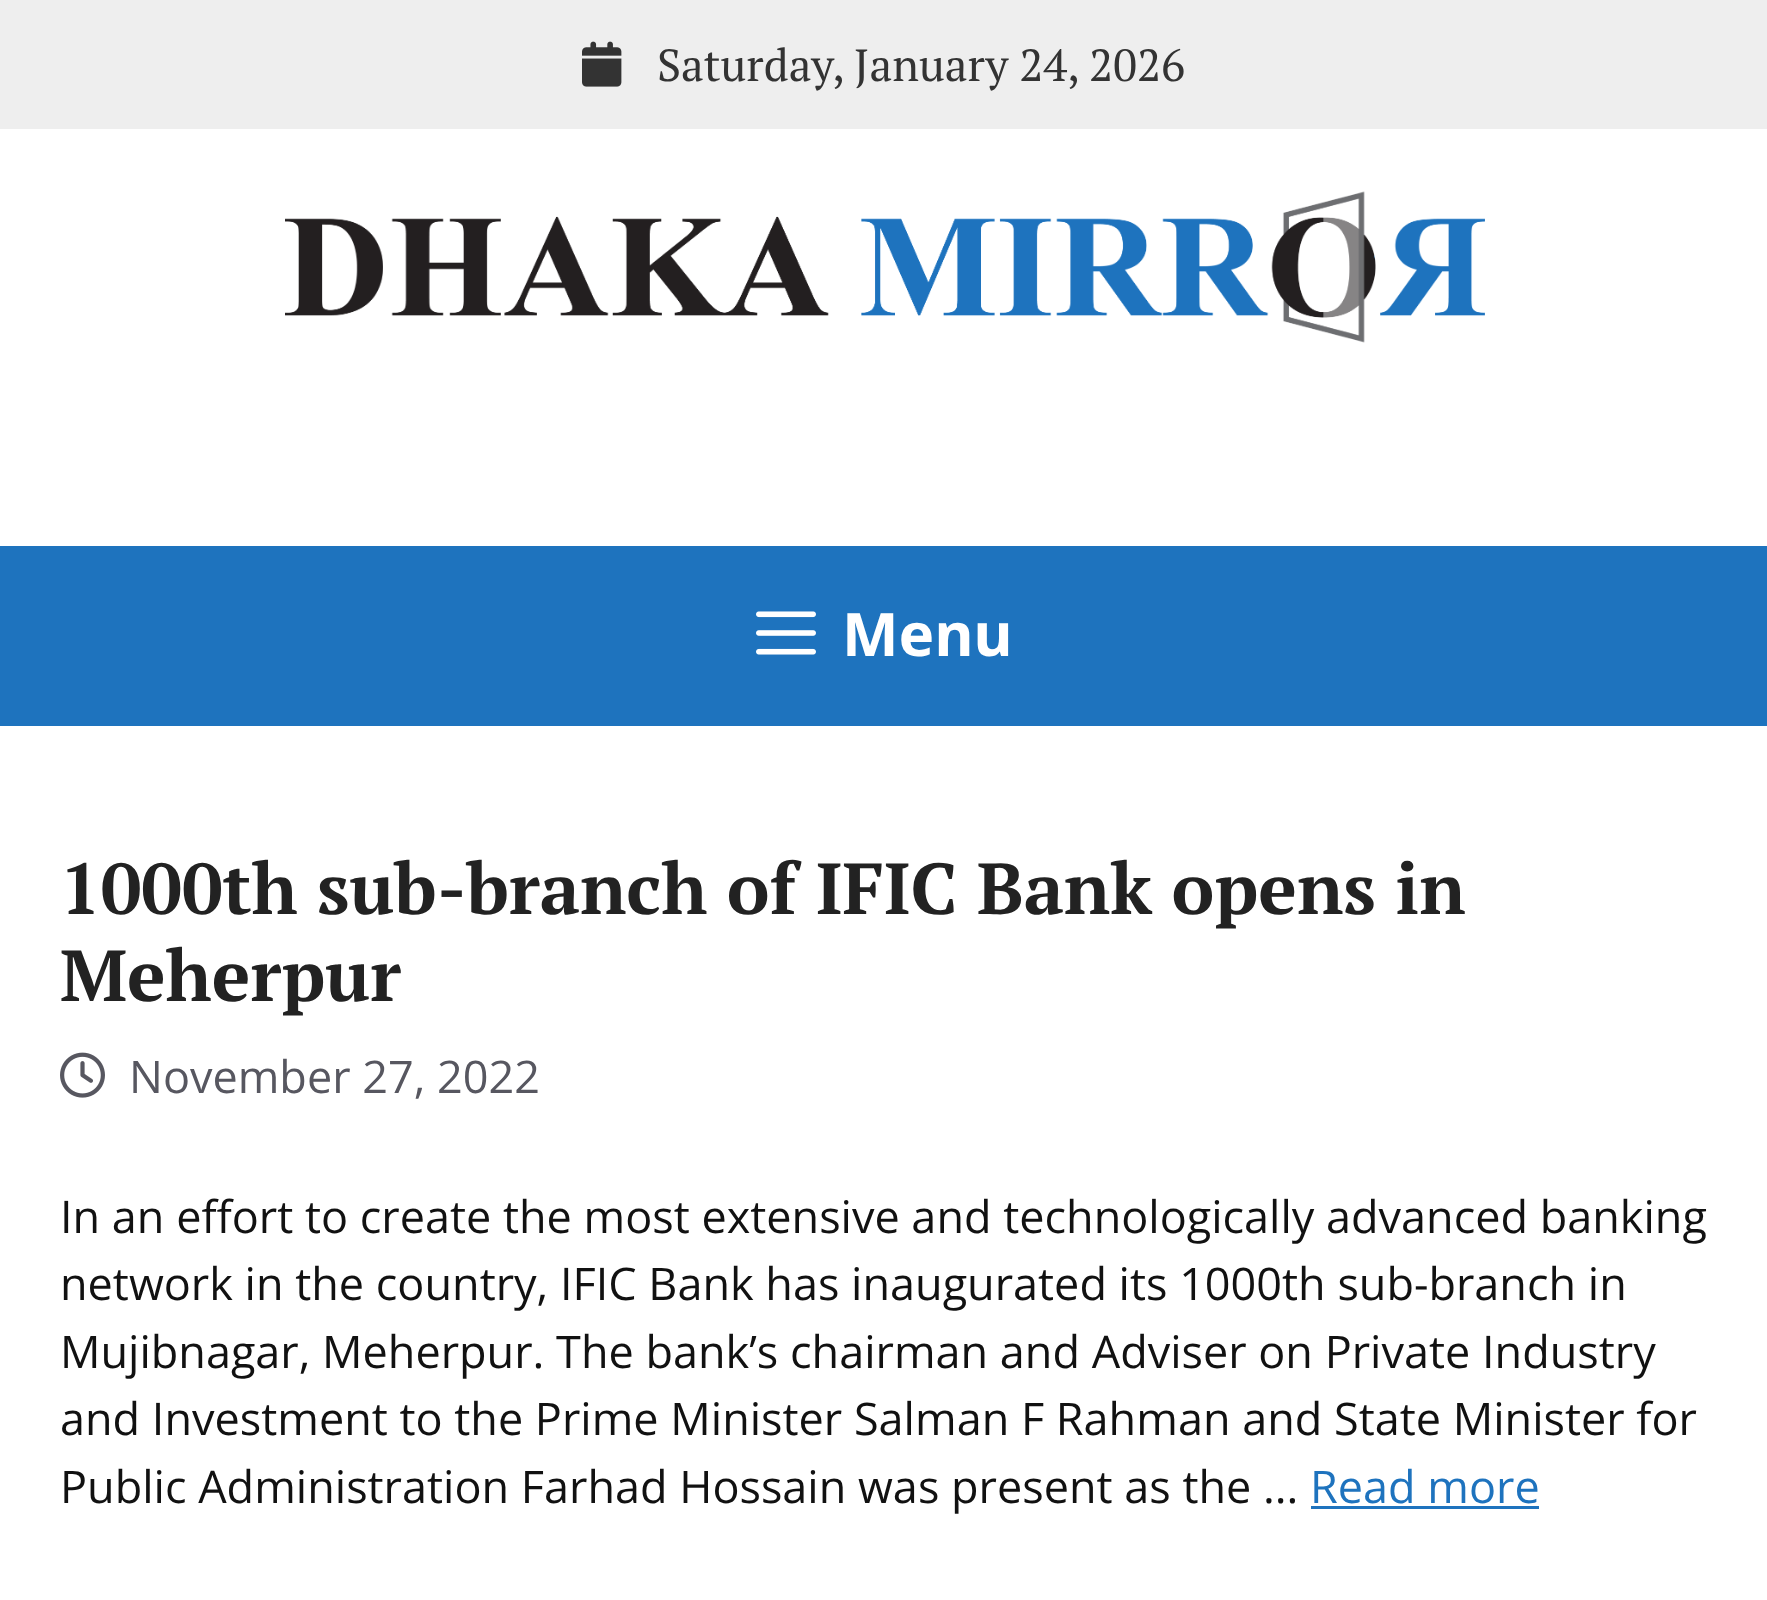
<svg xmlns="http://www.w3.org/2000/svg" width="1767" height="1600">
<rect width="100%" height="100%" fill="#eee"/>
<image x="582" y="41" width="40" height="46" href="media/1.png"/>
<text x="657" y="81" style="font-family:PT Serif;font-size:45px;fill:#333">Saturday, January 24, 2026</text>
<rect y="129" width="1767" height="417" fill="#fff"/>
<image x="285" y="191" width="1200" height="152" href="media/2.png"/>
<rect y="546" width="1767" height="180" fill="#1e73be"/>
<image x="756" y="611" width="60" height="44" href="media/3.png"/>
<text x="842" y="656" style="font-family:Noto Sans;font-size:60px;font-weight:bold;fill:#fff">Menu</text>
<rect y="726" width="1767" height="874" fill="#fff"/>
<text x="60" y="914" style="font-family:PT Serif;font-size:72px;font-weight:bold;fill:#222">1000th sub-branch of IFIC Bank opens in</text>
<text x="60" y="1001" style="font-family:PT Serif;font-size:72px;font-weight:bold;fill:#222">Meherpur</text>
<image x="60" y="1052" width="45" height="46" href="media/4.png"/>
<text x="129" y="1093" style="font-family:Open Sans;font-size:45px;fill:#575760">November 27, 2022</text>
<text x="60" y="1233" style="font-family:Open Sans;font-size:45px;fill:#111">In an effort to create the most extensive and technologically advanced banking</text>
<text x="60" y="1300" style="font-family:Open Sans;font-size:45px;fill:#111">network in the country, IFIC Bank has inaugurated its 1000th sub-branch in</text>
<text x="60" y="1368" style="font-family:Open Sans;font-size:45px;fill:#111">Mujibnagar, Meherpur. The bank’s chairman and Adviser on Private Industry</text>
<text x="60" y="1435" style="font-family:Open Sans;font-size:45px;fill:#111">and Investment to the Prime Minister Salman F Rahman and State Minister for</text>
<text x="60" y="1503" style="font-family:Open Sans;font-size:45px;fill:#111">Public Administration Farhad Hossain was present as the ...</text>
<text x="1310" y="1503" style="font-family:Open Sans;font-size:45px;fill:#1e73be">Read more</text>
<rect x="1311" y="1506" width="228" height="3" fill="#1e73be"/>
</svg>
